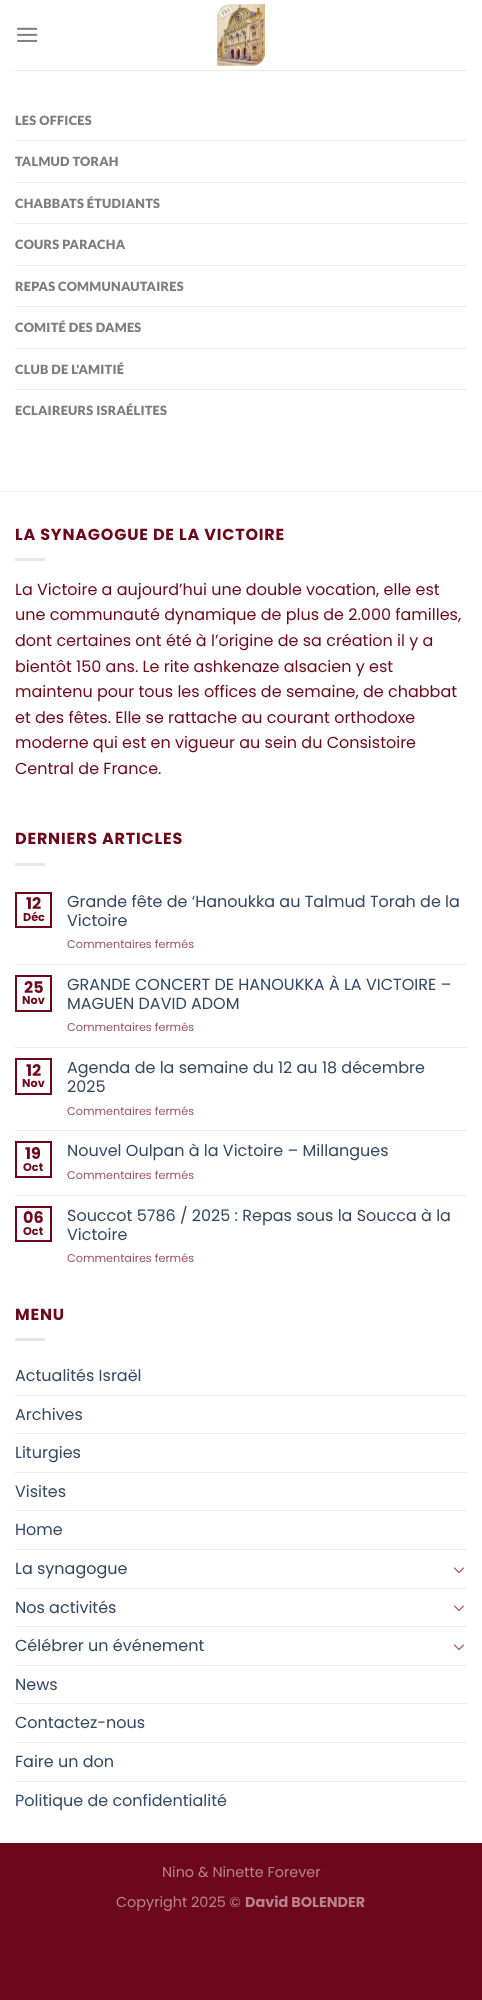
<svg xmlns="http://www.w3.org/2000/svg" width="482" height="2000">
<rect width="100%" height="100%" fill="#6d071a"/>
<rect width="482" height="1843" fill="#fff"/>
<image x="17" y="27" width="21" height="15" href="media/1.png"/>
<image x="217" y="4" width="48" height="62" href="media/2.png"/>
<rect x="15" y="70" width="452" height="1" fill="#f0e6e8"/>
<text x="15" y="125" style="font-family:Lato;font-size:12.75px;font-weight:900;letter-spacing:0.25px;fill:#7d7d7d">LES OFFICES</text>
<rect x="15" y="140" width="452" height="1" fill="#ececec"/>
<text x="15" y="166" style="font-family:Lato;font-size:12.75px;font-weight:900;letter-spacing:0.25px;fill:#7d7d7d">TALMUD TORAH</text>
<rect x="15" y="182" width="452" height="1" fill="#ececec"/>
<text x="15" y="208" style="font-family:Lato;font-size:12.75px;font-weight:900;letter-spacing:0.25px;fill:#7d7d7d">CHABBATS ÉTUDIANTS</text>
<rect x="15" y="223" width="452" height="1" fill="#ececec"/>
<text x="15" y="249" style="font-family:Lato;font-size:12.75px;font-weight:900;letter-spacing:0.25px;fill:#7d7d7d">COURS PARACHA</text>
<rect x="15" y="265" width="452" height="1" fill="#ececec"/>
<text x="15" y="291" style="font-family:Lato;font-size:12.75px;font-weight:900;letter-spacing:0.25px;fill:#7d7d7d">REPAS COMMUNAUTAIRES</text>
<rect x="15" y="306" width="452" height="1" fill="#ececec"/>
<text x="15" y="332" style="font-family:Lato;font-size:12.75px;font-weight:900;letter-spacing:0.25px;fill:#7d7d7d">COMITÉ DES DAMES</text>
<rect x="15" y="348" width="452" height="1" fill="#ececec"/>
<text x="15" y="374" style="font-family:Lato;font-size:12.75px;font-weight:900;letter-spacing:0.25px;fill:#7d7d7d">CLUB DE L'AMITIÉ</text>
<rect x="15" y="389" width="452" height="1" fill="#ececec"/>
<text x="15" y="415" style="font-family:Lato;font-size:12.75px;font-weight:900;letter-spacing:0.25px;fill:#7d7d7d">ECLAIREURS ISRAÉLITES</text>
<rect y="491" width="482" height="1" fill="#f2f2f2"/>
<text x="15" y="540" style="font-family:Poppins;font-size:16px;font-weight:bold;letter-spacing:0.8px;fill:#6d071a">LA SYNAGOGUE DE LA VICTOIRE</text>
<rect x="15" y="558" width="30" height="3" fill="#e6e6e6"/>
<text x="15" y="595" style="font-family:Poppins;font-size:16px;fill:#6d071a">La Victoire a aujourd’hui une double vocation, elle est</text>
<text x="15" y="620" style="font-family:Poppins;font-size:16px;fill:#6d071a">une communauté dynamique de plus de 2.000 familles,</text>
<text x="15" y="646" style="font-family:Poppins;font-size:16px;fill:#6d071a">dont certaines ont été à l’origine de sa création il y a</text>
<text x="15" y="672" style="font-family:Poppins;font-size:16px;fill:#6d071a">bientôt 150 ans. Le rite ashkenaze alsacien y est</text>
<text x="15" y="697" style="font-family:Poppins;font-size:16px;fill:#6d071a">maintenu pour tous les offices de semaine, de chabbat</text>
<text x="15" y="723" style="font-family:Poppins;font-size:16px;fill:#6d071a">et des fêtes. Elle se rattache au courant orthodoxe</text>
<text x="15" y="748" style="font-family:Poppins;font-size:16px;fill:#6d071a">moderne qui est en vigueur au sein du Consistoire</text>
<text x="15" y="774" style="font-family:Poppins;font-size:16px;fill:#6d071a">Central de France.</text>
<text x="15" y="844" style="font-family:Poppins;font-size:16px;font-weight:bold;letter-spacing:0.8px;fill:#6d071a">DERNIERS ARTICLES</text>
<rect x="15" y="863" width="30" height="3" fill="#e6e6e6"/>
<rect x="16" y="893" width="35" height="34" fill="none" stroke="#6d071a" stroke-width="2"/>
<text x="26" y="909" style="font-family:Poppins;font-size:16px;font-weight:bold;fill:#6d071a">12</text>
<text x="23" y="921" style="font-family:Poppins;font-size:11.25px;font-weight:bold;fill:#6d071a">Déc</text>
<text x="67" y="907" style="font-family:Poppins;font-size:16px;fill:#334862">Grande fête de ‘Hanoukka au Talmud Torah de la</text>
<text x="67" y="926" style="font-family:Poppins;font-size:16px;fill:#334862">Victoire</text>
<text x="67" y="948" style="font-family:Poppins;font-size:11.25px;fill:#99515f">Commentaires fermés</text>
<rect x="15" y="964" width="452" height="1" fill="#ececec"/>
<rect x="16" y="976" width="35" height="35" fill="none" stroke="#6d071a" stroke-width="2"/>
<text x="24" y="993" style="font-family:Poppins;font-size:16px;font-weight:bold;fill:#6d071a">25</text>
<text x="22" y="1004" style="font-family:Poppins;font-size:11.25px;font-weight:bold;fill:#6d071a">Nov</text>
<text x="67" y="990" style="font-family:Poppins;font-size:16px;fill:#334862">GRANDE CONCERT DE HANOUKKA À LA VICTOIRE –</text>
<text x="67" y="1009" style="font-family:Poppins;font-size:16px;fill:#334862">MAGUEN DAVID ADOM</text>
<text x="67" y="1031" style="font-family:Poppins;font-size:11.25px;fill:#99515f">Commentaires fermés</text>
<rect x="15" y="1047" width="452" height="1" fill="#ececec"/>
<rect x="16" y="1059" width="35" height="35" fill="none" stroke="#6d071a" stroke-width="2"/>
<text x="26" y="1076" style="font-family:Poppins;font-size:16px;font-weight:bold;fill:#6d071a">12</text>
<text x="22" y="1087" style="font-family:Poppins;font-size:11.25px;font-weight:bold;fill:#6d071a">Nov</text>
<text x="67" y="1073" style="font-family:Poppins;font-size:16px;fill:#334862">Agenda de la semaine du 12 au 18 décembre</text>
<text x="67" y="1092" style="font-family:Poppins;font-size:16px;fill:#334862">2025</text>
<text x="67" y="1115" style="font-family:Poppins;font-size:11.25px;fill:#99515f">Commentaires fermés</text>
<rect x="15" y="1130" width="452" height="1" fill="#ececec"/>
<rect x="16" y="1142" width="35" height="35" fill="none" stroke="#6d071a" stroke-width="2"/>
<text x="25" y="1159" style="font-family:Poppins;font-size:16px;font-weight:bold;fill:#6d071a">19</text>
<text x="23" y="1171" style="font-family:Poppins;font-size:11.25px;font-weight:bold;fill:#6d071a">Oct</text>
<text x="67" y="1156" style="font-family:Poppins;font-size:16px;fill:#334862">Nouvel Oulpan à la Victoire – Millangues</text>
<text x="67" y="1179" style="font-family:Poppins;font-size:11.25px;fill:#99515f">Commentaires fermés</text>
<rect x="15" y="1195" width="452" height="1" fill="#ececec"/>
<rect x="16" y="1207" width="35" height="34" fill="none" stroke="#6d071a" stroke-width="2"/>
<text x="23" y="1223" style="font-family:Poppins;font-size:16px;font-weight:bold;fill:#6d071a">06</text>
<text x="23" y="1235" style="font-family:Poppins;font-size:11.25px;font-weight:bold;fill:#6d071a">Oct</text>
<text x="67" y="1221" style="font-family:Poppins;font-size:16px;fill:#334862">Souccot 5786 / 2025 : Repas sous la Soucca à la</text>
<text x="67" y="1240" style="font-family:Poppins;font-size:16px;fill:#334862">Victoire</text>
<text x="67" y="1262" style="font-family:Poppins;font-size:11.25px;fill:#99515f">Commentaires fermés</text>
<text x="15" y="1320" style="font-family:Poppins;font-size:16px;font-weight:bold;letter-spacing:0.8px;fill:#6d071a">MENU</text>
<rect x="15" y="1338" width="30" height="3" fill="#e6e6e6"/>
<text x="15" y="1381" style="font-family:Poppins;font-size:16px;fill:#334862">Actualités Israël</text>
<rect x="15" y="1395" width="452" height="1" fill="#ececec"/>
<text x="15" y="1420" style="font-family:Poppins;font-size:16px;fill:#334862">Archives</text>
<rect x="15" y="1433" width="452" height="1" fill="#ececec"/>
<text x="15" y="1458" style="font-family:Poppins;font-size:16px;fill:#334862">Liturgies</text>
<rect x="15" y="1472" width="452" height="1" fill="#ececec"/>
<text x="15" y="1497" style="font-family:Poppins;font-size:16px;fill:#334862">Visites</text>
<rect x="15" y="1510" width="452" height="1" fill="#ececec"/>
<text x="15" y="1535" style="font-family:Poppins;font-size:16px;fill:#334862">Home</text>
<rect x="15" y="1549" width="452" height="1" fill="#ececec"/>
<text x="15" y="1574" style="font-family:Poppins;font-size:16px;fill:#334862">La synagogue</text>
<image x="453" y="1567" width="12" height="7" href="media/3.png"/>
<rect x="15" y="1588" width="452" height="1" fill="#ececec"/>
<text x="15" y="1613" style="font-family:Poppins;font-size:16px;fill:#334862">Nos activités</text>
<image x="453" y="1605" width="12" height="7" href="media/3.png"/>
<rect x="15" y="1626" width="452" height="1" fill="#ececec"/>
<text x="15" y="1651" style="font-family:Poppins;font-size:16px;fill:#334862">Célébrer un événement</text>
<image x="453" y="1644" width="12" height="7" href="media/3.png"/>
<rect x="15" y="1665" width="452" height="1" fill="#ececec"/>
<text x="15" y="1690" style="font-family:Poppins;font-size:16px;fill:#334862">News</text>
<rect x="15" y="1703" width="452" height="1" fill="#ececec"/>
<text x="15" y="1728" style="font-family:Poppins;font-size:16px;fill:#334862">Contactez-nous</text>
<rect x="15" y="1742" width="452" height="1" fill="#ececec"/>
<text x="15" y="1767" style="font-family:Poppins;font-size:16px;fill:#334862">Faire un don</text>
<rect x="15" y="1781" width="452" height="1" fill="#ececec"/>
<text x="15" y="1806" style="font-family:Poppins;font-size:16px;fill:#334862">Politique de confidentialité</text>
<text x="162" y="1877" style="font-family:Poppins;font-size:14.4px;fill:#b6838d">Nino &amp; Ninette Forever</text>
<text x="116" y="1907" style="font-family:Poppins;font-size:14.4px;fill:#b6838d">Copyright 2025 ©</text>
<text x="245" y="1907" style="font-family:Poppins;font-size:14.4px;font-weight:bold;fill:#b6838d">David BOLENDER</text>
</svg>
